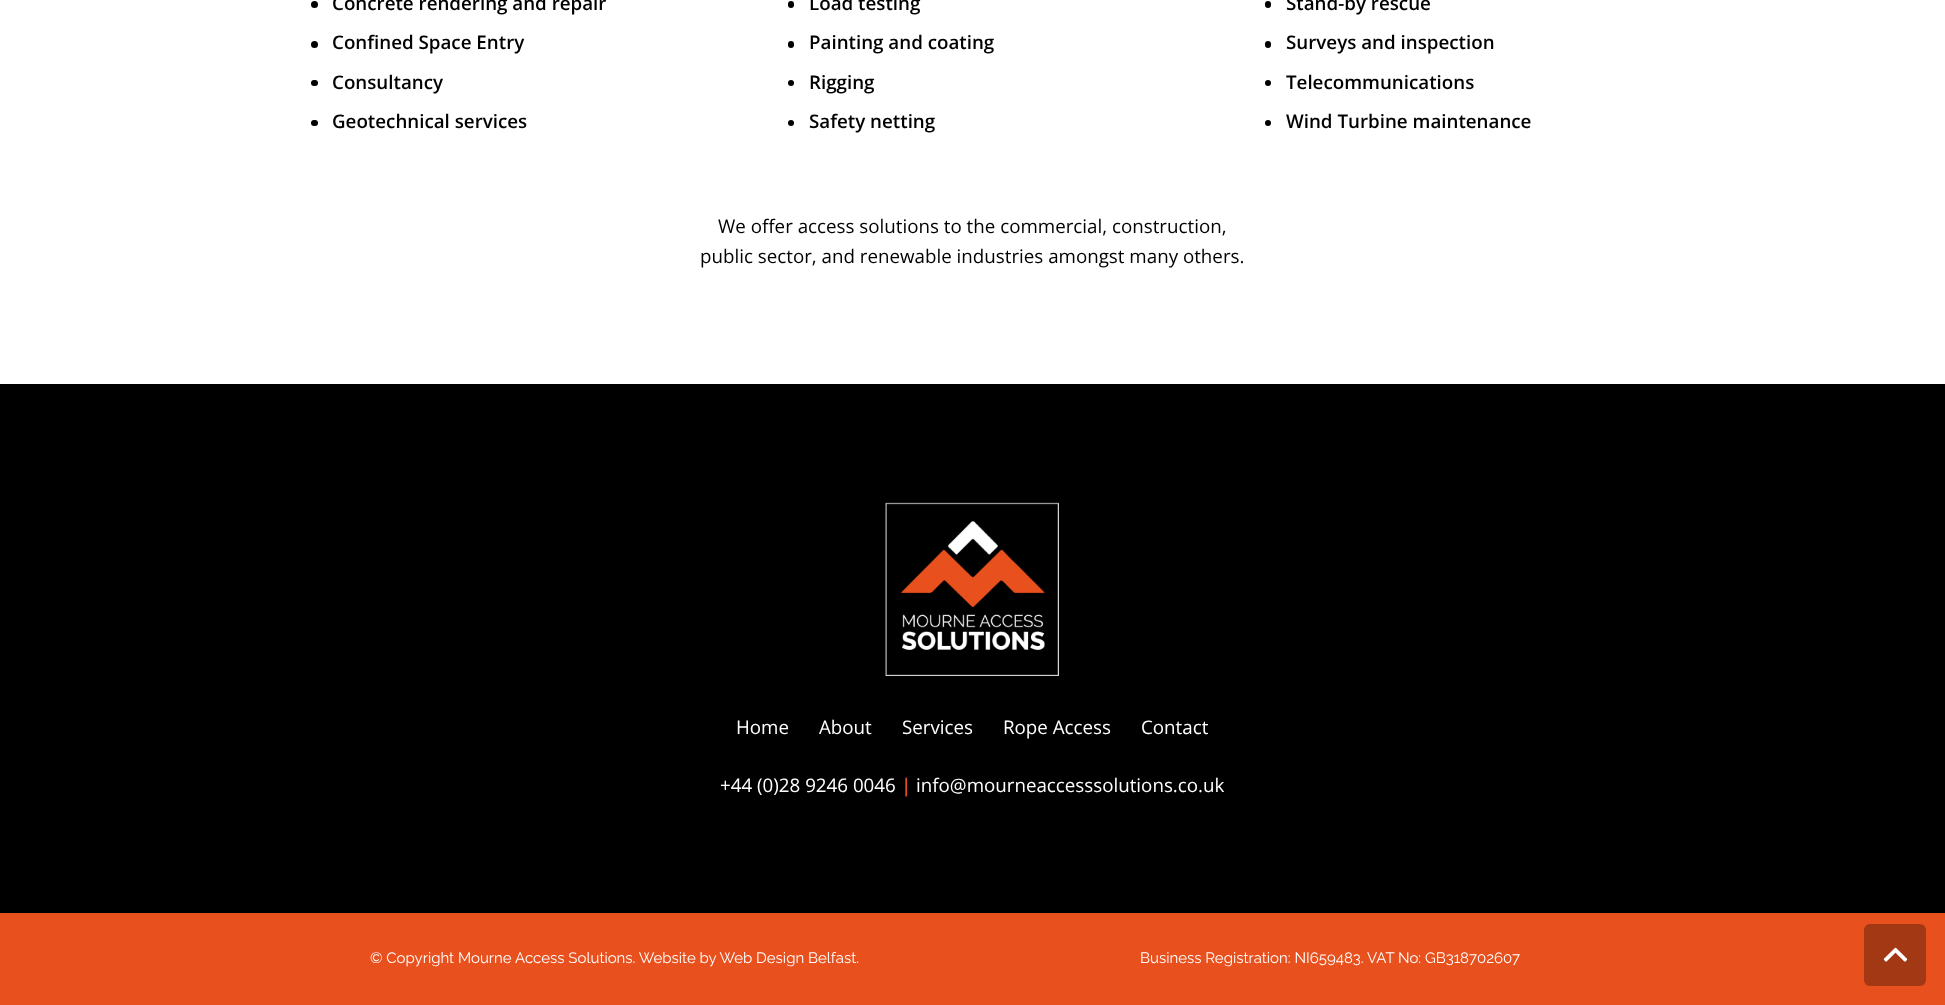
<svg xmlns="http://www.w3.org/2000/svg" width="1945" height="1005">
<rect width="100%" height="100%" fill="#fff"/>
<circle cx="314.5" cy="4.5" r="3.5" fill="#000"/>
<text x="332" y="10" style="font-family:Open Sans;font-size:18.75px;font-weight:600;fill:#000">Concrete rendering and repair</text>
<circle cx="314.5" cy="44.5" r="3.5" fill="#000"/>
<text x="332" y="49" style="font-family:Open Sans;font-size:18.75px;font-weight:600;fill:#000">Confined Space Entry</text>
<rect x="311" y="80" width="7" height="6" rx="3" fill="#000"/>
<text x="332" y="89" style="font-family:Open Sans;font-size:18.75px;font-weight:600;fill:#000">Consultancy</text>
<rect x="311" y="120" width="7" height="6" rx="3" fill="#000"/>
<text x="332" y="128" style="font-family:Open Sans;font-size:18.75px;font-weight:600;fill:#000">Geotechnical services</text>
<rect x="788" y="1" width="6" height="7" rx="3" fill="#000"/>
<text x="809" y="10" style="font-family:Open Sans;font-size:18.75px;font-weight:600;fill:#000">Load testing</text>
<rect x="788" y="41" width="6" height="7" rx="3" fill="#000"/>
<text x="809" y="49" style="font-family:Open Sans;font-size:18.75px;font-weight:600;fill:#000">Painting and coating</text>
<circle cx="791" cy="83" r="3" fill="#000"/>
<text x="809" y="89" style="font-family:Open Sans;font-size:18.75px;font-weight:600;fill:#000">Rigging</text>
<circle cx="791" cy="123" r="3" fill="#000"/>
<text x="809" y="128" style="font-family:Open Sans;font-size:18.75px;font-weight:600;fill:#000">Safety netting</text>
<rect x="1265" y="1" width="6" height="7" rx="3" fill="#000"/>
<text x="1286" y="10" style="font-family:Open Sans;font-size:18.75px;font-weight:600;fill:#000">Stand-by rescue</text>
<rect x="1265" y="41" width="6" height="7" rx="3" fill="#000"/>
<text x="1286" y="49" style="font-family:Open Sans;font-size:18.75px;font-weight:600;fill:#000">Surveys and inspection</text>
<circle cx="1268" cy="83" r="3" fill="#000"/>
<text x="1286" y="89" style="font-family:Open Sans;font-size:18.75px;font-weight:600;fill:#000">Telecommunications</text>
<circle cx="1268" cy="123" r="3" fill="#000"/>
<text x="1286" y="128" style="font-family:Open Sans;font-size:18.75px;font-weight:600;fill:#000">Wind Turbine maintenance</text>
<text x="718" y="233" style="font-family:Open Sans;font-size:18.75px;fill:#000">We offer access solutions to the commercial, construction,</text>
<text x="700" y="263" style="font-family:Open Sans;font-size:18.75px;fill:#000">public sector, and renewable industries amongst many others.</text>
<rect y="384" width="1945" height="529" fill="#000"/>
<image x="885" y="502" width="174" height="174" href="media/1.png"/>
<text x="736" y="734" style="font-family:Open Sans;font-size:18.75px;fill:#fff">Home</text>
<text x="819" y="734" style="font-family:Open Sans;font-size:18.75px;fill:#fff">About</text>
<text x="902" y="734" style="font-family:Open Sans;font-size:18.75px;fill:#fff">Services</text>
<text x="1003" y="734" style="font-family:Open Sans;font-size:18.75px;fill:#fff">Rope Access</text>
<text x="1141" y="734" style="font-family:Open Sans;font-size:18.75px;fill:#fff">Contact</text>
<text x="720" y="792" style="font-family:Open Sans;font-size:18.75px;fill:#fff">+44 (0)28 9246 0046</text>
<text x="901" y="792" style="font-family:Open Sans;font-size:18.75px;font-weight:600;fill:#e8501d">|</text>
<text x="916" y="792" style="font-family:Open Sans;font-size:18.75px;fill:#fff">info@mourneaccesssolutions.co.uk</text>
<rect y="913" width="1945" height="92" fill="#e8501d"/>
<text x="370" y="963" style="font-family:Raleway;font-size:15px;fill:#fff">© Copyright Mourne Access Solutions. Website by Web Design Belfast.</text>
<text x="1140" y="963" style="font-family:Raleway;font-size:15px;fill:#fff">Business Registration: NI659483. VAT No: GB318702607</text>
<rect x="1864" y="924" width="62" height="62" rx="6" fill="#a23814"/>
<image x="1883" y="947" width="25" height="15" href="media/2.png"/>
</svg>
